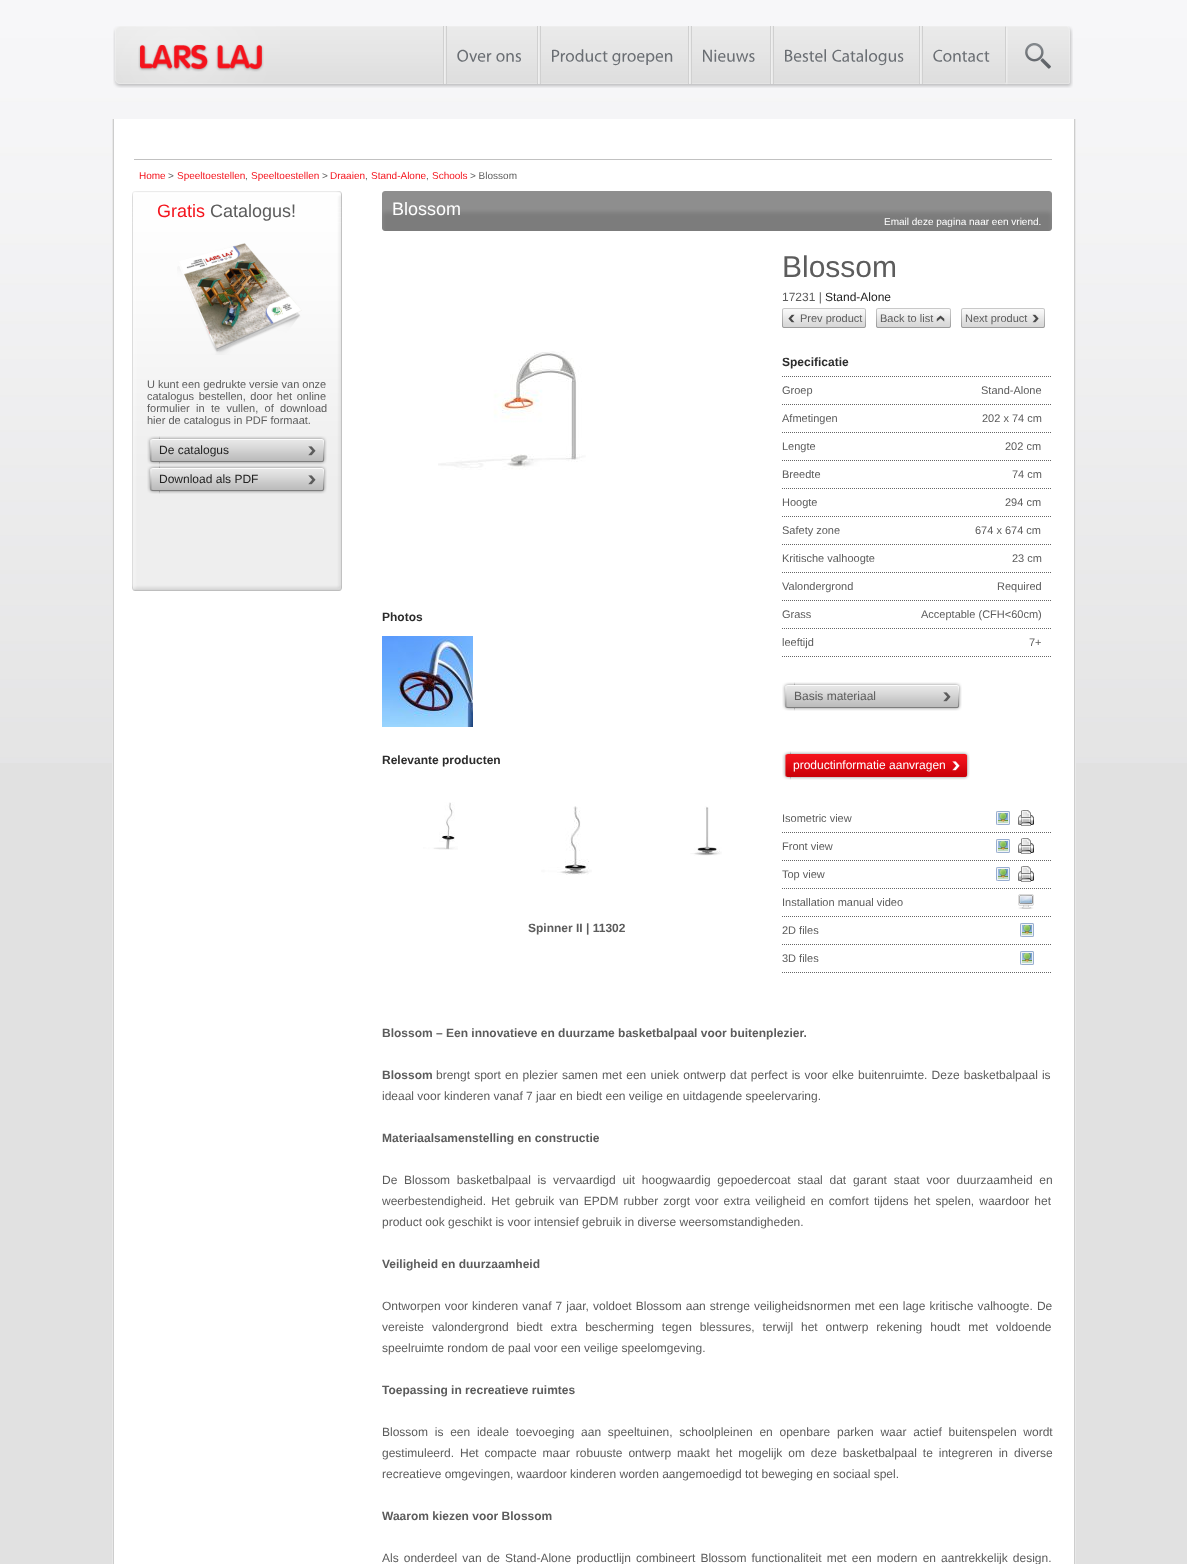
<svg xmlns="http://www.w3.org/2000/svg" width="1187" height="1564">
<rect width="100%" height="100%" fill="#e1e1e1"/>
<image x="0" y="0" width="1187" height="763" href="media/1.png"/>
<image x="113" y="26" width="167" height="62" href="media/2.png"/>
<image x="138" y="44" width="126" height="28" href="media/3.png"/>
<image x="280" y="26" width="725" height="62" href="media/4.png"/>
<image x="443" y="26" width="4" height="58" href="media/5.png"/>
<image x="457" y="49" width="35" height="13" href="media/6.png"/>
<image x="496" y="53" width="25" height="9" href="media/7.png"/>
<image x="537" y="26" width="4" height="58" href="media/5.png"/>
<image x="552" y="49" width="56" height="13" href="media/8.png"/>
<image x="612" y="53" width="61" height="13" href="media/9.png"/>
<image x="688" y="26" width="4" height="58" href="media/5.png"/>
<image x="703" y="49" width="52" height="13" href="media/10.png"/>
<image x="770" y="26" width="4" height="58" href="media/5.png"/>
<image x="785" y="49" width="41" height="13" href="media/11.png"/>
<image x="832" y="49" width="72" height="17" href="media/12.png"/>
<image x="919" y="26" width="4" height="58" href="media/5.png"/>
<image x="933" y="49" width="57" height="13" href="media/13.png"/>
<image x="1005" y="26" width="68" height="62" href="media/14.png"/>
<image x="112" y="119" width="964" height="1445" href="media/15.png"/>
<rect x="134" y="159" width="918" height="1" fill="#c1c1c1"/>
<text x="139" y="179" style="font-family:Liberation Sans;font-size:10px;fill:#f4131c">Home</text>
<text x="168" y="179" style="font-family:Liberation Sans;font-size:10px;fill:#5c5c5c">&gt;</text>
<text x="177" y="179" style="font-family:Liberation Sans;font-size:10px;fill:#f4131c">Speeltoestellen</text>
<text x="245" y="179" style="font-family:Liberation Sans;font-size:10px;fill:#5c5c5c">,</text>
<text x="251" y="179" style="font-family:Liberation Sans;font-size:10px;fill:#f4131c">Speeltoestellen</text>
<text x="322" y="179" style="font-family:Liberation Sans;font-size:10px;fill:#5c5c5c">&gt;</text>
<text x="330" y="179" style="font-family:Liberation Sans;font-size:10px;fill:#f4131c">Draaien</text>
<text x="365" y="179" style="font-family:Liberation Sans;font-size:10px;fill:#5c5c5c">,</text>
<text x="371" y="179" style="font-family:Liberation Sans;font-size:10px;fill:#f4131c">Stand-Alone</text>
<text x="426" y="179" style="font-family:Liberation Sans;font-size:10px;fill:#5c5c5c">,</text>
<text x="432" y="179" style="font-family:Liberation Sans;font-size:10px;fill:#f4131c">Schools</text>
<text x="470" y="179" style="font-family:Liberation Sans;font-size:10px;fill:#5c5c5c">&gt; Blossom</text>
<image x="132" y="191" width="210" height="400" href="media/16.png"/>
<text x="157" y="217" style="font-family:Liberation Sans;font-size:18px;fill:#f4131c">Gratis</text>
<text x="210" y="217" style="font-family:Liberation Sans;font-size:18px;fill:#5c5c5c">Catalogus!</text>
<image x="177" y="243" width="125" height="112" href="media/17.png"/>
<text x="147" y="388" style="font-family:Liberation Sans;font-size:11px;fill:#5c5c5c">U kunt een gedrukte versie van onze</text>
<text x="147" y="400" word-spacing="1.5" style="font-family:Liberation Sans;font-size:11px;fill:#5c5c5c">catalogus bestellen, door het online</text>
<text x="147" y="412" word-spacing="3.25" style="font-family:Liberation Sans;font-size:11px;fill:#5c5c5c">formulier in te vullen, of download</text>
<text x="147" y="424" style="font-family:Liberation Sans;font-size:11px;fill:#5c5c5c">hier de catalogus in PDF formaat.</text>
<image x="147" y="436" width="13" height="29" href="media/18.png"/>
<image x="159" y="436" width="168" height="29" href="media/19.png"/>
<text x="159" y="454" style="font-family:Liberation Sans;font-size:12px;fill:#222">De catalogus</text>
<image x="147" y="465" width="13" height="29" href="media/20.png"/>
<image x="159" y="465" width="168" height="29" href="media/21.png"/>
<text x="159" y="483" style="font-family:Liberation Sans;font-size:12px;fill:#222">Download als PDF</text>
<image x="382" y="191" width="670" height="40" href="media/22.png"/>
<text x="392" y="215" style="font-family:Liberation Sans;font-size:18px;fill:#fff">Blossom</text>
<text x="884" y="225" style="font-family:Liberation Sans;font-size:10px;fill:#fff">Email deze pagina naar een vriend.</text>
<image x="438" y="351" width="148" height="119" href="media/23.png"/>
<text x="382" y="621" style="font-family:Liberation Sans;font-size:12px;font-weight:bold;fill:#2c2c2c">Photos</text>
<image x="382" y="636" width="91" height="91" href="media/24.png"/>
<text x="382" y="764" style="font-family:Liberation Sans;font-size:12px;font-weight:bold;fill:#2c2c2c">Relevante producten</text>
<image x="423" y="802" width="35" height="48" href="media/25.png"/>
<image x="541" y="806" width="51" height="69" href="media/26.png"/>
<image x="690" y="806" width="32" height="50" href="media/27.png"/>
<text x="528" y="932" style="font-family:Liberation Sans;font-size:12px;font-weight:bold;fill:#5c5c5c">Spinner II | 11302</text>
<text x="782" y="277" style="font-family:Liberation Sans;font-size:30px;fill:#5c5c5c">Blossom</text>
<text x="782" y="301" style="font-family:Liberation Sans;font-size:12px;fill:#5c5c5c">17231 |</text>
<text x="825" y="301" style="font-family:Liberation Sans;font-size:12px;fill:#222">Stand-Alone</text>
<image x="860" y="308" width="6" height="20" href="media/28.png"/>
<image x="782" y="308" width="78" height="20" href="media/29.png"/>
<text x="800" y="322" style="font-family:Liberation Sans;font-size:11px;fill:#5c5c5c">Prev product</text>
<image x="876" y="308" width="6" height="20" href="media/30.png"/>
<image x="882" y="308" width="69" height="20" href="media/31.png"/>
<text x="880" y="322" style="font-family:Liberation Sans;font-size:11px;fill:#5c5c5c">Back to list</text>
<image x="961" y="308" width="6" height="20" href="media/30.png"/>
<image x="967" y="308" width="78" height="20" href="media/32.png"/>
<text x="965" y="322" style="font-family:Liberation Sans;font-size:11px;fill:#5c5c5c">Next product</text>
<path d="M782 376.5h270" fill="none" stroke="#666" stroke-dasharray="1 1"/>
<text x="782" y="366" style="font-family:Liberation Sans;font-size:12px;font-weight:bold;fill:#2c2c2c">Specificatie</text>
<path d="M782 404.5h270" fill="none" stroke="#666" stroke-dasharray="1 1"/>
<text x="782" y="394" style="font-family:Liberation Sans;font-size:11px;fill:#5c5c5c">Groep</text>
<text x="981" y="394" style="font-family:Liberation Sans;font-size:11px;fill:#5c5c5c">Stand-Alone</text>
<path d="M782 432.5h270" fill="none" stroke="#666" stroke-dasharray="1 1"/>
<text x="782" y="422" style="font-family:Liberation Sans;font-size:11px;fill:#5c5c5c">Afmetingen</text>
<text x="982" y="422" style="font-family:Liberation Sans;font-size:11px;fill:#5c5c5c">202 x 74 cm</text>
<path d="M782 460.5h270" fill="none" stroke="#666" stroke-dasharray="1 1"/>
<text x="782" y="450" style="font-family:Liberation Sans;font-size:11px;fill:#5c5c5c">Lengte</text>
<text x="1005" y="450" style="font-family:Liberation Sans;font-size:11px;fill:#5c5c5c">202 cm</text>
<path d="M782 488.5h270" fill="none" stroke="#666" stroke-dasharray="1 1"/>
<text x="782" y="478" style="font-family:Liberation Sans;font-size:11px;fill:#5c5c5c">Breedte</text>
<text x="1012" y="478" style="font-family:Liberation Sans;font-size:11px;fill:#5c5c5c">74 cm</text>
<path d="M782 516.5h270" fill="none" stroke="#666" stroke-dasharray="1 1"/>
<text x="782" y="506" style="font-family:Liberation Sans;font-size:11px;fill:#5c5c5c">Hoogte</text>
<text x="1005" y="506" style="font-family:Liberation Sans;font-size:11px;fill:#5c5c5c">294 cm</text>
<path d="M782 544.5h270" fill="none" stroke="#666" stroke-dasharray="1 1"/>
<text x="782" y="534" style="font-family:Liberation Sans;font-size:11px;fill:#5c5c5c">Safety zone</text>
<text x="975" y="534" style="font-family:Liberation Sans;font-size:11px;fill:#5c5c5c">674 x 674 cm</text>
<path d="M782 572.5h270" fill="none" stroke="#666" stroke-dasharray="1 1"/>
<text x="782" y="562" style="font-family:Liberation Sans;font-size:11px;fill:#5c5c5c">Kritische valhoogte</text>
<text x="1012" y="562" style="font-family:Liberation Sans;font-size:11px;fill:#5c5c5c">23 cm</text>
<path d="M782 600.5h270" fill="none" stroke="#666" stroke-dasharray="1 1"/>
<text x="782" y="590" style="font-family:Liberation Sans;font-size:11px;fill:#5c5c5c">Valondergrond</text>
<text x="997" y="590" style="font-family:Liberation Sans;font-size:11px;fill:#5c5c5c">Required</text>
<path d="M782 628.5h270" fill="none" stroke="#666" stroke-dasharray="1 1"/>
<text x="782" y="618" style="font-family:Liberation Sans;font-size:11px;fill:#5c5c5c">Grass</text>
<text x="921" y="618" style="font-family:Liberation Sans;font-size:11px;fill:#5c5c5c">Acceptable (CFH&lt;60cm)</text>
<path d="M782 656.5h270" fill="none" stroke="#666" stroke-dasharray="1 1"/>
<text x="782" y="646" style="font-family:Liberation Sans;font-size:11px;fill:#5c5c5c">leeftijd</text>
<text x="1029" y="646" style="font-family:Liberation Sans;font-size:11px;fill:#5c5c5c">7+</text>
<image x="782" y="682" width="13" height="29" href="media/33.png"/>
<image x="794" y="682" width="168" height="29" href="media/34.png"/>
<text x="794" y="700" style="font-family:Liberation Sans;font-size:12px;fill:#5c5c5c">Basis materiaal</text>
<image x="782" y="751" width="9" height="29" href="media/35.png"/>
<image x="790" y="751" width="180" height="29" href="media/36.png"/>
<text x="793" y="769" style="font-family:Liberation Sans;font-size:12px;fill:#fff">productinformatie aanvragen</text>
<path d="M782 832.5h270" fill="none" stroke="#666" stroke-dasharray="1 1"/>
<text x="782" y="822" style="font-family:Liberation Sans;font-size:11px;fill:#5c5c5c">Isometric view</text>
<image x="996" y="811" width="14" height="14" href="media/37.png"/>
<image x="1018" y="810" width="16" height="16" href="media/38.png"/>
<path d="M782 860.5h270" fill="none" stroke="#666" stroke-dasharray="1 1"/>
<text x="782" y="850" style="font-family:Liberation Sans;font-size:11px;fill:#5c5c5c">Front view</text>
<image x="996" y="839" width="14" height="14" href="media/37.png"/>
<image x="1018" y="838" width="16" height="16" href="media/38.png"/>
<path d="M782 888.5h270" fill="none" stroke="#666" stroke-dasharray="1 1"/>
<text x="782" y="878" style="font-family:Liberation Sans;font-size:11px;fill:#5c5c5c">Top view</text>
<image x="996" y="867" width="14" height="14" href="media/37.png"/>
<image x="1018" y="866" width="16" height="16" href="media/38.png"/>
<path d="M782 916.5h270" fill="none" stroke="#666" stroke-dasharray="1 1"/>
<text x="782" y="906" style="font-family:Liberation Sans;font-size:11px;fill:#5c5c5c">Installation manual video</text>
<image x="1018" y="894" width="16" height="15" href="media/39.png"/>
<path d="M782 944.5h270" fill="none" stroke="#666" stroke-dasharray="1 1"/>
<text x="782" y="934" style="font-family:Liberation Sans;font-size:11px;fill:#5c5c5c">2D files</text>
<image x="1020" y="923" width="14" height="14" href="media/37.png"/>
<path d="M782 972.5h270" fill="none" stroke="#666" stroke-dasharray="1 1"/>
<text x="782" y="962" style="font-family:Liberation Sans;font-size:11px;fill:#5c5c5c">3D files</text>
<image x="1020" y="951" width="14" height="14" href="media/37.png"/>
<text x="382" y="1037" style="font-family:Liberation Sans;font-size:12px;font-weight:bold;fill:#5c5c5c">Blossom – Een innovatieve en duurzame basketbalpaal voor buitenplezier.</text>
<text x="382" y="1079" style="font-family:Liberation Sans;font-size:12px;font-weight:bold;fill:#5c5c5c">Blossom</text>
<text x="436" y="1079" word-spacing="0.8" style="font-family:Liberation Sans;font-size:12px;fill:#5c5c5c">brengt sport en plezier samen met een uniek ontwerp dat perfect is voor elke buitenruimte. Deze basketbalpaal is</text>
<text x="382" y="1100" style="font-family:Liberation Sans;font-size:12px;fill:#5c5c5c">ideaal voor kinderen vanaf 7 jaar en biedt een veilige en uitdagende speelervaring.</text>
<text x="382" y="1142" style="font-family:Liberation Sans;font-size:12px;font-weight:bold;fill:#5c5c5c">Materiaalsamenstelling en constructie</text>
<text x="382" y="1184" word-spacing="3.4" style="font-family:Liberation Sans;font-size:12px;fill:#5c5c5c">De Blossom basketbalpaal is vervaardigd uit hoogwaardig gepoedercoat staal dat garant staat voor duurzaamheid en</text>
<text x="382" y="1205" word-spacing="1.75" style="font-family:Liberation Sans;font-size:12px;fill:#5c5c5c">weerbestendigheid. Het gebruik van EPDM rubber zorgt voor extra veiligheid en comfort tijdens het spelen, waardoor het</text>
<text x="382" y="1226" style="font-family:Liberation Sans;font-size:12px;fill:#5c5c5c">product ook geschikt is voor intensief gebruik in diverse weersomstandigheden.</text>
<text x="382" y="1268" style="font-family:Liberation Sans;font-size:12px;font-weight:bold;fill:#5c5c5c">Veiligheid en duurzaamheid</text>
<text x="382" y="1310" word-spacing="0.7" style="font-family:Liberation Sans;font-size:12px;fill:#5c5c5c">Ontworpen voor kinderen vanaf 7 jaar, voldoet Blossom aan strenge veiligheidsnormen met een lage kritische valhoogte. De</text>
<text x="382" y="1331" word-spacing="4.6" style="font-family:Liberation Sans;font-size:12px;fill:#5c5c5c">vereiste valondergrond biedt extra bescherming tegen blessures, terwijl het ontwerp rekening houdt met voldoende</text>
<text x="382" y="1352" style="font-family:Liberation Sans;font-size:12px;fill:#5c5c5c">speelruimte rondom de paal voor een veilige speelomgeving.</text>
<text x="382" y="1394" style="font-family:Liberation Sans;font-size:12px;font-weight:bold;fill:#5c5c5c">Toepassing in recreatieve ruimtes</text>
<text x="382" y="1436" word-spacing="3.4" style="font-family:Liberation Sans;font-size:12px;fill:#5c5c5c">Blossom is een ideale toevoeging aan speeltuinen, schoolpleinen en openbare parken waar actief buitenspelen wordt</text>
<text x="382" y="1457" word-spacing="2.6" style="font-family:Liberation Sans;font-size:12px;fill:#5c5c5c">gestimuleerd. Het compacte maar robuuste ontwerp maakt het mogelijk om deze basketbalpaal te integreren in diverse</text>
<text x="382" y="1478" style="font-family:Liberation Sans;font-size:12px;fill:#5c5c5c">recreatieve omgevingen, waardoor kinderen worden aangemoedigd tot beweging en sociaal spel.</text>
<text x="382" y="1520" style="font-family:Liberation Sans;font-size:12px;font-weight:bold;fill:#5c5c5c">Waarom kiezen voor Blossom</text>
<text x="382" y="1562" word-spacing="1.75" style="font-family:Liberation Sans;font-size:12px;fill:#5c5c5c">Als onderdeel van de Stand-Alone productlijn combineert Blossom functionaliteit met een modern en aantrekkelijk design.</text>
</svg>
